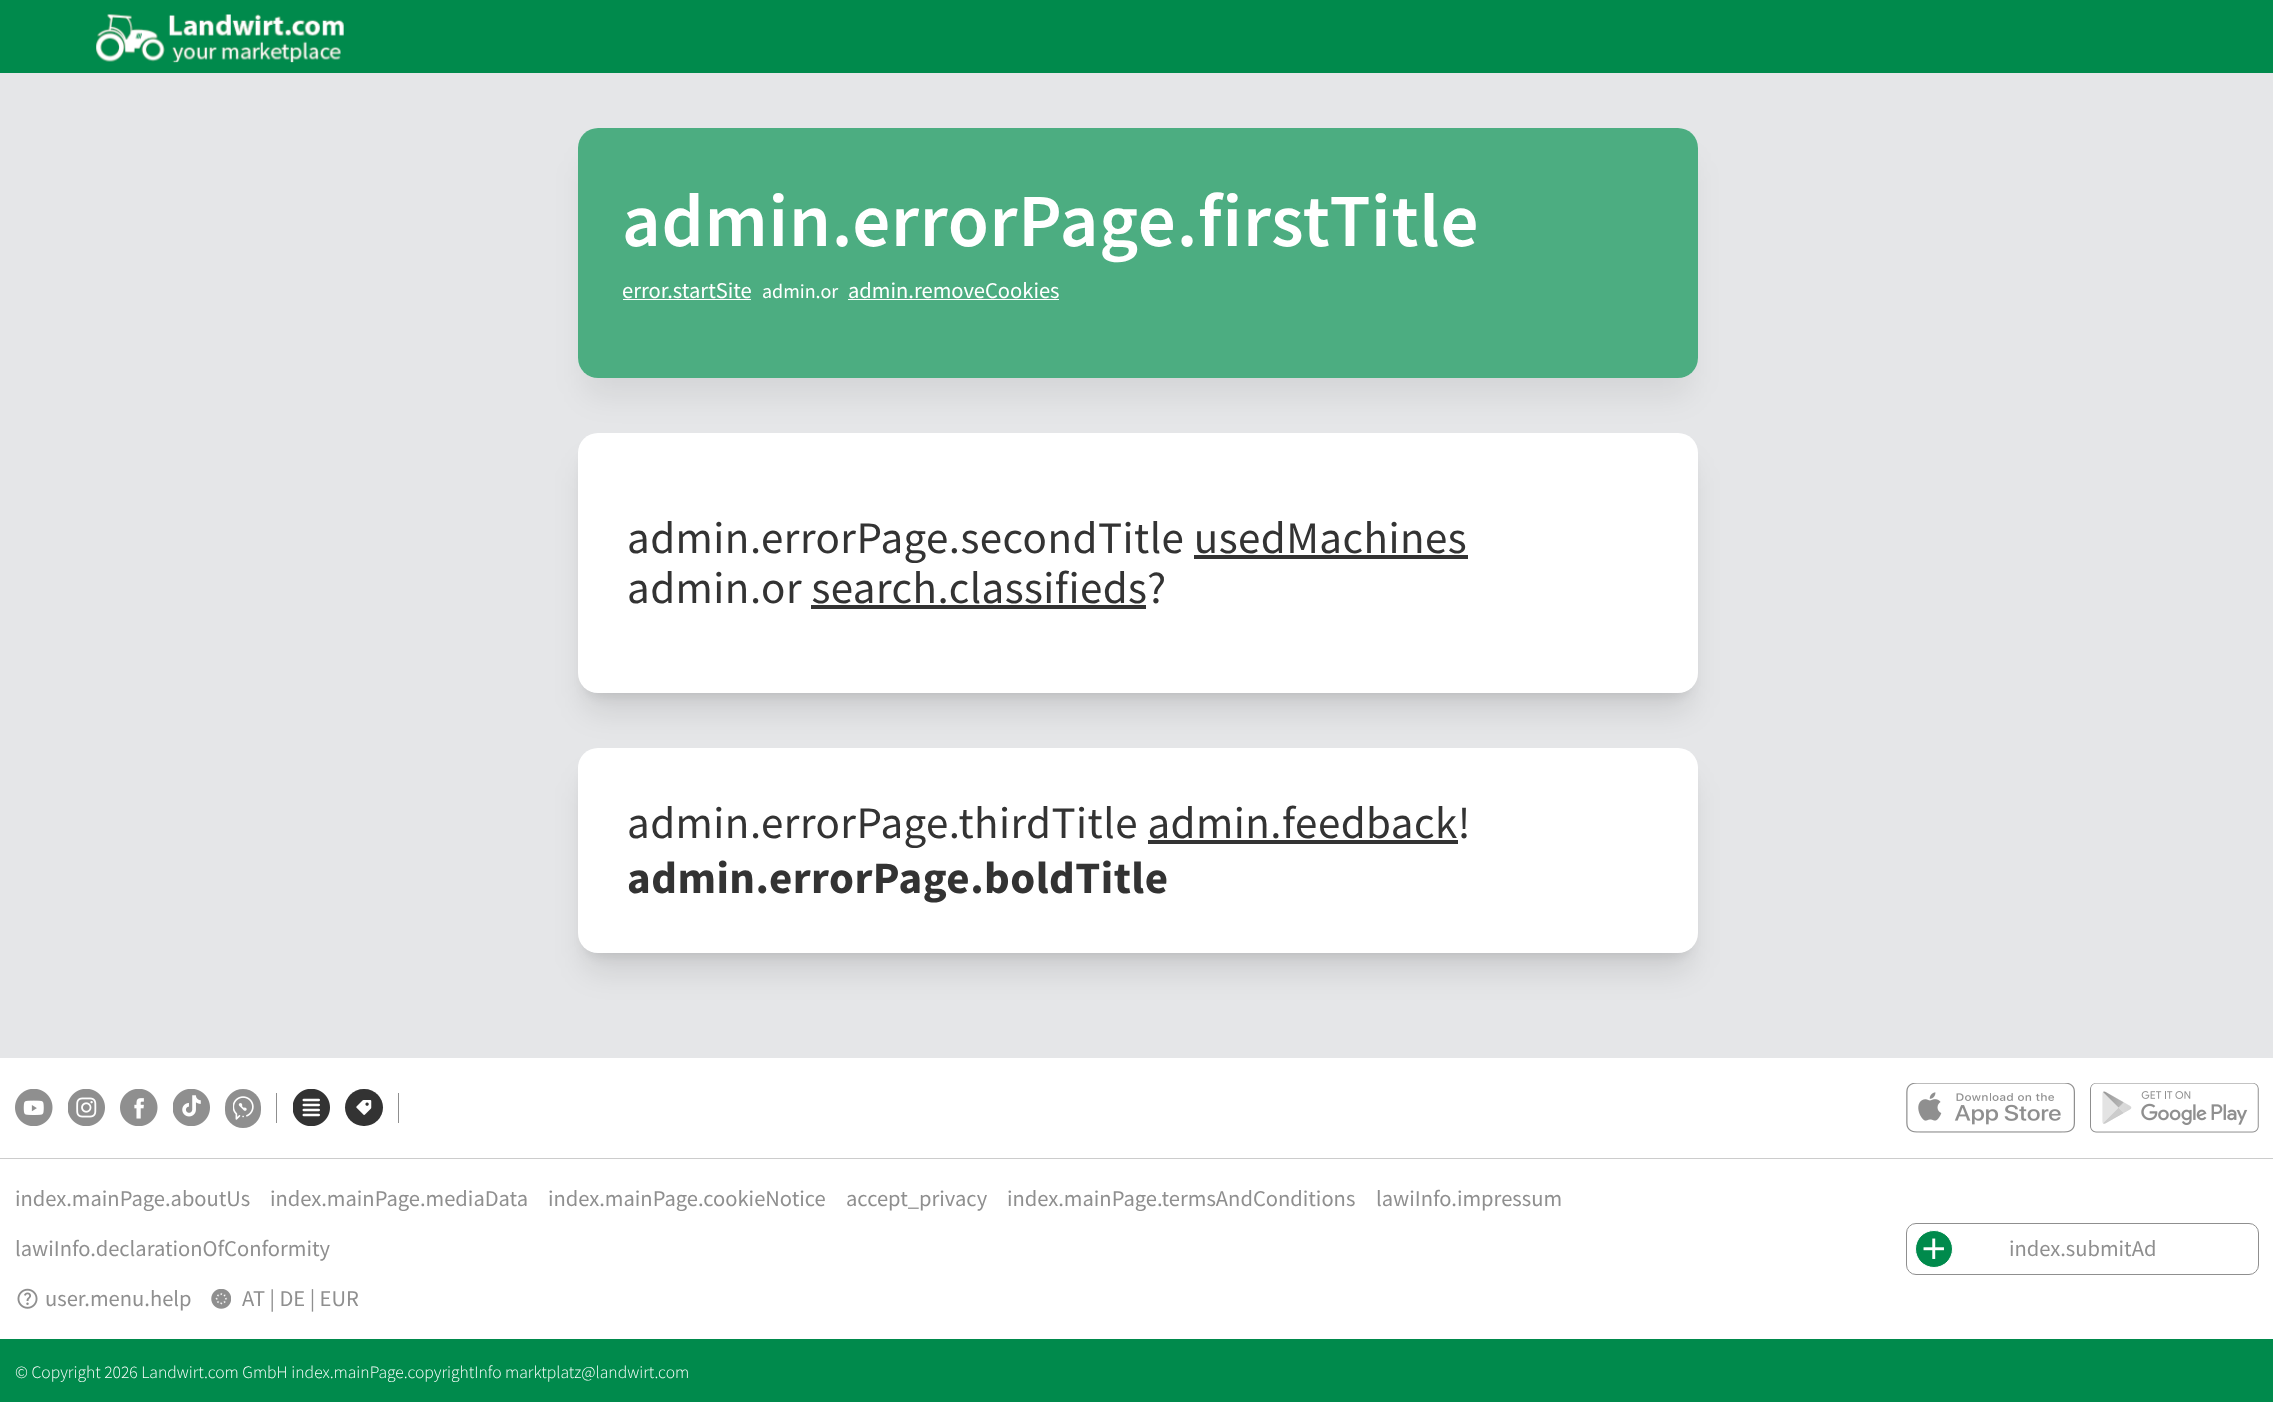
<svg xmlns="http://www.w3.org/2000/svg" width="2273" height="1402">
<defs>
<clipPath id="clip1"><path d="M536 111h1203v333h-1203zm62 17h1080c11 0 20 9 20 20v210c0 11-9 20-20 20h-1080c-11 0-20-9-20-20v-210c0-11 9-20 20-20z" clip-rule="evenodd"/></clipPath>
</defs>
<rect width="100%" height="100%" fill="#e5e6e8"/>
<rect width="2273" height="73" fill="#008a4c"/>
<image x="96" y="14" width="248" height="49" href="media/1.png"/>
<rect x="578" y="128" width="1120" height="250" rx="20" fill="#fff"/>
<rect x="585" y="450" width="1105" height="245" rx="13" fill="#0000001a" filter="blur(6px)"/>
<rect x="584" y="464" width="1107" height="247" rx="14" fill="#0000001a" filter="blur(15.5px)"/>
<rect x="578" y="433" width="1120" height="260" rx="20" fill="#fff"/>
<g clip-path="url(#clip1)">
<rect x="584" y="159" width="1107" height="237" rx="14" fill="#00000012" filter="blur(15.5px)"/>
</g>
<rect x="578" y="128" width="1120" height="250" rx="20" fill="#008a4cb3"/>
<text x="622" y="246" style="font-family:Source Sans Pro;font-size:75px;font-weight:600;letter-spacing:0.75px;fill:#fff">admin.errorPage.firstTitle</text>
<text x="622" y="298" style="font-family:Source Sans Pro;font-size:22.5px;fill:#fff">error.startSite</text>
<rect x="623" y="299" width="128" height="1" fill="#fff"/>
<text x="762" y="298" style="font-family:Source Sans Pro;font-size:20px;fill:#fff">admin.or</text>
<text x="848" y="298" style="font-family:Source Sans Pro;font-size:22.5px;fill:#fff">admin.removeCookies</text>
<rect x="848" y="299" width="211" height="1" fill="#fff"/>
<text x="627" y="553" style="font-family:Source Sans Pro;font-size:45px;letter-spacing:0.45px;fill:#333">admin.errorPage.secondTitle usedMachines</text>
<rect x="1194" y="555" width="274" height="4" fill="#333"/>
<text x="627" y="603" style="font-family:Source Sans Pro;font-size:45px;letter-spacing:0.45px;fill:#333">admin.or search.classifieds</text>
<text x="1147" y="603" style="font-family:Source Sans Pro;font-size:45px;letter-spacing:0.45px;fill:#333">?</text>
<rect x="811" y="605" width="335" height="4" fill="#333"/>
<rect x="585" y="765" width="1105" height="190" rx="13" fill="#0000001a" filter="blur(6px)"/>
<rect x="584" y="779" width="1107" height="192" rx="14" fill="#0000001a" filter="blur(15.5px)"/>
<rect x="578" y="748" width="1120" height="205" rx="20" fill="#fff"/>
<text x="627" y="838" style="font-family:Source Sans Pro;font-size:45px;letter-spacing:0.45px;fill:#333">admin.errorPage.thirdTitle admin.feedback!</text>
<rect x="1148" y="840" width="310" height="4" fill="#333"/>
<text x="627" y="893" style="font-family:Source Sans Pro;font-size:45px;font-weight:bold;letter-spacing:0.45px;fill:#333">admin.errorPage.boldTitle</text>
<rect y="1058" width="2273" height="281" fill="#fff"/>
<image x="15" y="1089" width="38" height="37" href="media/2.png"/>
<image x="68" y="1089" width="37" height="37" href="media/3.png"/>
<image x="120" y="1089" width="38" height="37" href="media/4.png"/>
<image x="173" y="1089" width="37" height="37" href="media/5.png"/>
<rect x="225" y="1089" width="36" height="39" rx="18" fill="#8f8f8f"/>
<image x="233" y="1096" width="21" height="24" href="media/6.png"/>
<rect x="276" y="1093" width="1" height="30" fill="#8f8f8f"/>
<image x="293" y="1089" width="37" height="37" href="media/7.png"/>
<rect x="345" y="1089" width="38" height="37" rx="18.5" fill="#333"/>
<image x="356" y="1100" width="16" height="15" href="media/8.png"/>
<rect x="398" y="1093" width="1" height="30" fill="#8f8f8f"/>
<image x="1906" y="1083" width="169" height="50" href="media/9.png"/>
<image x="2090" y="1083" width="169" height="50" href="media/10.png"/>
<rect y="1158" width="2273" height="1" fill="#ccc"/>
<text x="15" y="1206" style="font-family:Source Sans Pro;font-size:22.5px;fill:#8f8f8f">index.mainPage.aboutUs</text>
<text x="270" y="1206" style="font-family:Source Sans Pro;font-size:22.5px;fill:#8f8f8f">index.mainPage.mediaData</text>
<text x="548" y="1206" style="font-family:Source Sans Pro;font-size:22.5px;fill:#8f8f8f">index.mainPage.cookieNotice</text>
<text x="846" y="1206" style="font-family:Source Sans Pro;font-size:22.5px;fill:#8f8f8f">accept_privacy</text>
<text x="1007" y="1206" style="font-family:Source Sans Pro;font-size:22.5px;fill:#8f8f8f">index.mainPage.termsAndConditions</text>
<text x="1376" y="1206" style="font-family:Source Sans Pro;font-size:22.5px;fill:#8f8f8f">lawiInfo.impressum</text>
<text x="15" y="1256" style="font-family:Source Sans Pro;font-size:22.5px;fill:#8f8f8f">lawiInfo.declarationOfConformity</text>
<image x="17" y="1288" width="21" height="21" href="media/11.png"/>
<text x="45" y="1306" style="font-family:Source Sans Pro;font-size:22.5px;fill:#8f8f8f">user.menu.help</text>
<image x="211" y="1289" width="20" height="20" href="media/12.png"/>
<text x="242" y="1306" style="font-family:Source Sans Pro;font-size:22.5px;fill:#8f8f8f">AT | DE | EUR</text>
<rect x="1906.5" y="1223.5" width="352" height="51" rx="9.5" fill="none" stroke="#8f8f8f"/>
<circle cx="1934" cy="1249" r="18.5" fill="#008a4c" stroke="#fff"/>
<image x="1923" y="1238" width="21" height="21" href="media/13.png"/>
<text x="2009" y="1256" style="font-family:Source Sans Pro;font-size:22.5px;fill:#8f8f8f">index.submitAd</text>
<rect y="1339" width="2273" height="63" fill="#008a4c"/>
<text x="15" y="1378" style="font-family:Source Sans Pro;font-size:17.5px;font-weight:300;fill:#fff">© Copyright 2026 Landwirt.com GmbH index.mainPage.copyrightInfo marktplatz@landwirt.com</text>
</svg>
